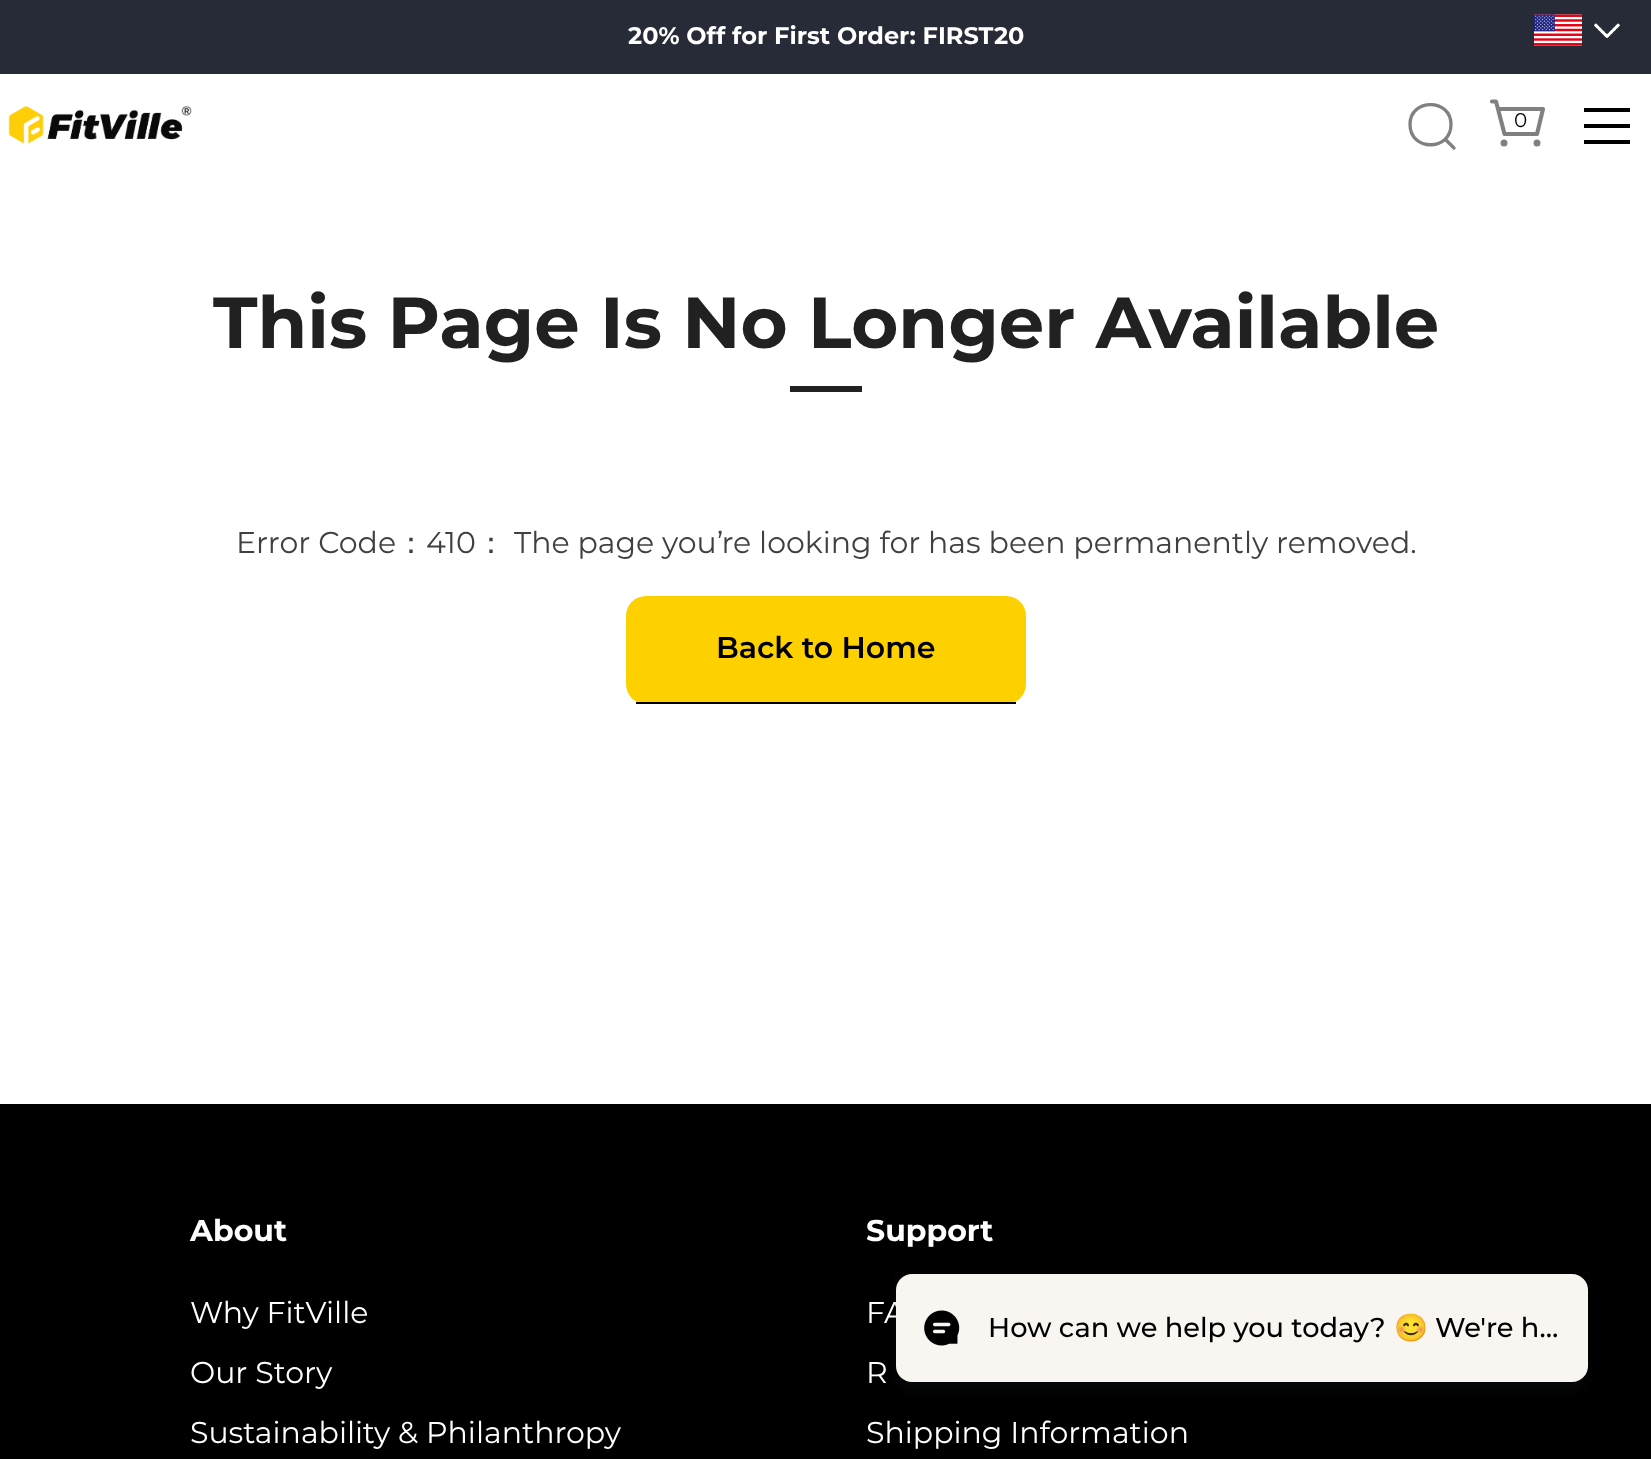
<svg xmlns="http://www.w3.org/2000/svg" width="1651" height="1459">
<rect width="100%" height="100%" fill="#fff"/>
<rect width="1651" height="74" fill="#272a37"/>
<text x="628" y="44" style="font-family:Montserrat;font-size:24px;font-weight:bold;fill:#fff">20% Off for First Order: FIRST20</text>
<image x="1534" y="14" width="48" height="32" href="media/1.png"/>
<image x="1594" y="23" width="26" height="15" href="media/2.png"/>
<image x="8" y="106" width="184" height="38" href="media/3.png"/>
<path d="M1451 124.5c0 27-41 27-41 0c0-26.5 41-26.5 41 0zm-5.5 15l8.5 8.5" fill="none" stroke="#808080" stroke-width="3.3" stroke-linecap="round" stroke-linejoin="round"/>
<path d="M1492 101.5h4l2 7.5m0 0l6.5 25h32.5l6-25z" fill="none" stroke="#808080" stroke-width="4.1" stroke-linecap="round" stroke-linejoin="round"/>
<circle cx="1504" cy="143" r="3.5" fill="#808080"/>
<circle cx="1537" cy="143" r="3.5" fill="#808080"/>
<text x="1514" y="127" style="font-family:Montserrat;font-size:20px;fill:#000">0</text>
<rect x="1584" y="108" width="46" height="4" fill="#000"/>
<rect x="1584" y="124" width="46" height="4" fill="#000"/>
<rect x="1584" y="140" width="46" height="4" fill="#000"/>
<text x="213" y="348" style="font-family:Montserrat;font-size:72px;font-weight:bold;fill:#212121">This Page Is No Longer Available</text>
<rect x="790" y="386" width="72" height="6" fill="#212121"/>
<text x="236" y="553" style="font-family:Montserrat;font-size:30px;fill:#423f3f">Error Code</text>
<text x="396" y="553" style="font-family:WenQuanYi Zen Hei;font-size:30px;font-weight:500;fill:#423f3f">：</text>
<text x="426" y="553" style="font-family:Montserrat;font-size:30px;fill:#423f3f">410</text>
<text x="476" y="553" style="font-family:WenQuanYi Zen Hei;font-size:30px;font-weight:500;fill:#423f3f">：</text>
<text x="514" y="553" style="font-family:Montserrat;font-size:30px;fill:#423f3f">The page youʼre looking for has been permanently removed.</text>
<rect x="626" y="596" width="400" height="108" rx="20" fill="#fdd000"/>
<rect x="636" y="702" width="380" height="2" fill="#000"/>
<text x="716" y="658" style="font-family:Montserrat;font-size:30px;font-weight:600;fill:#000">Back to Home</text>
<rect y="1104" width="1651" height="355" fill="#000"/>
<text x="190" y="1241" style="font-family:Montserrat;font-size:30px;font-weight:bold;fill:#fff">About</text>
<text x="190" y="1323" style="font-family:Montserrat;font-size:30px;fill:#fff">Why FitVille</text>
<text x="190" y="1383" style="font-family:Montserrat;font-size:30px;fill:#fff">Our Story</text>
<text x="190" y="1443" style="font-family:Montserrat;font-size:30px;fill:#fff">Sustainability &amp; Philanthropy</text>
<text x="866" y="1241" style="font-family:Montserrat;font-size:30px;font-weight:bold;fill:#fff">Support</text>
<text x="866" y="1323" style="font-family:Montserrat;font-size:30px;fill:#fff">FA</text>
<text x="866" y="1383" style="font-family:Montserrat;font-size:30px;fill:#fff">R</text>
<text x="866" y="1443" style="font-family:Montserrat;font-size:30px;fill:#fff">Shipping Information</text>
<rect x="896" y="1282" width="692" height="110" rx="16" fill="#373f4714" filter="blur(4px)"/>
<rect x="895" y="1273" width="694" height="110" fill="none" stroke="#373f470a" stroke-width="2"/>
<rect x="896" y="1274" width="692" height="108" rx="16" fill="#f9f5f0"/>
<image x="924" y="1310" width="36" height="36" href="media/4.png"/>
<text x="988" y="1337" style="font-family:Montserrat;font-size:27.25px;font-weight:500;fill:#000">How can we help you today?</text>
<text x="1394" y="1337" style="font-family:Noto Color Emoji;font-size:27.25px;fill:#000">😊</text>
<text x="1435" y="1337" style="font-family:Montserrat;font-size:27.25px;font-weight:500;fill:#000">We're h…</text>
</svg>
